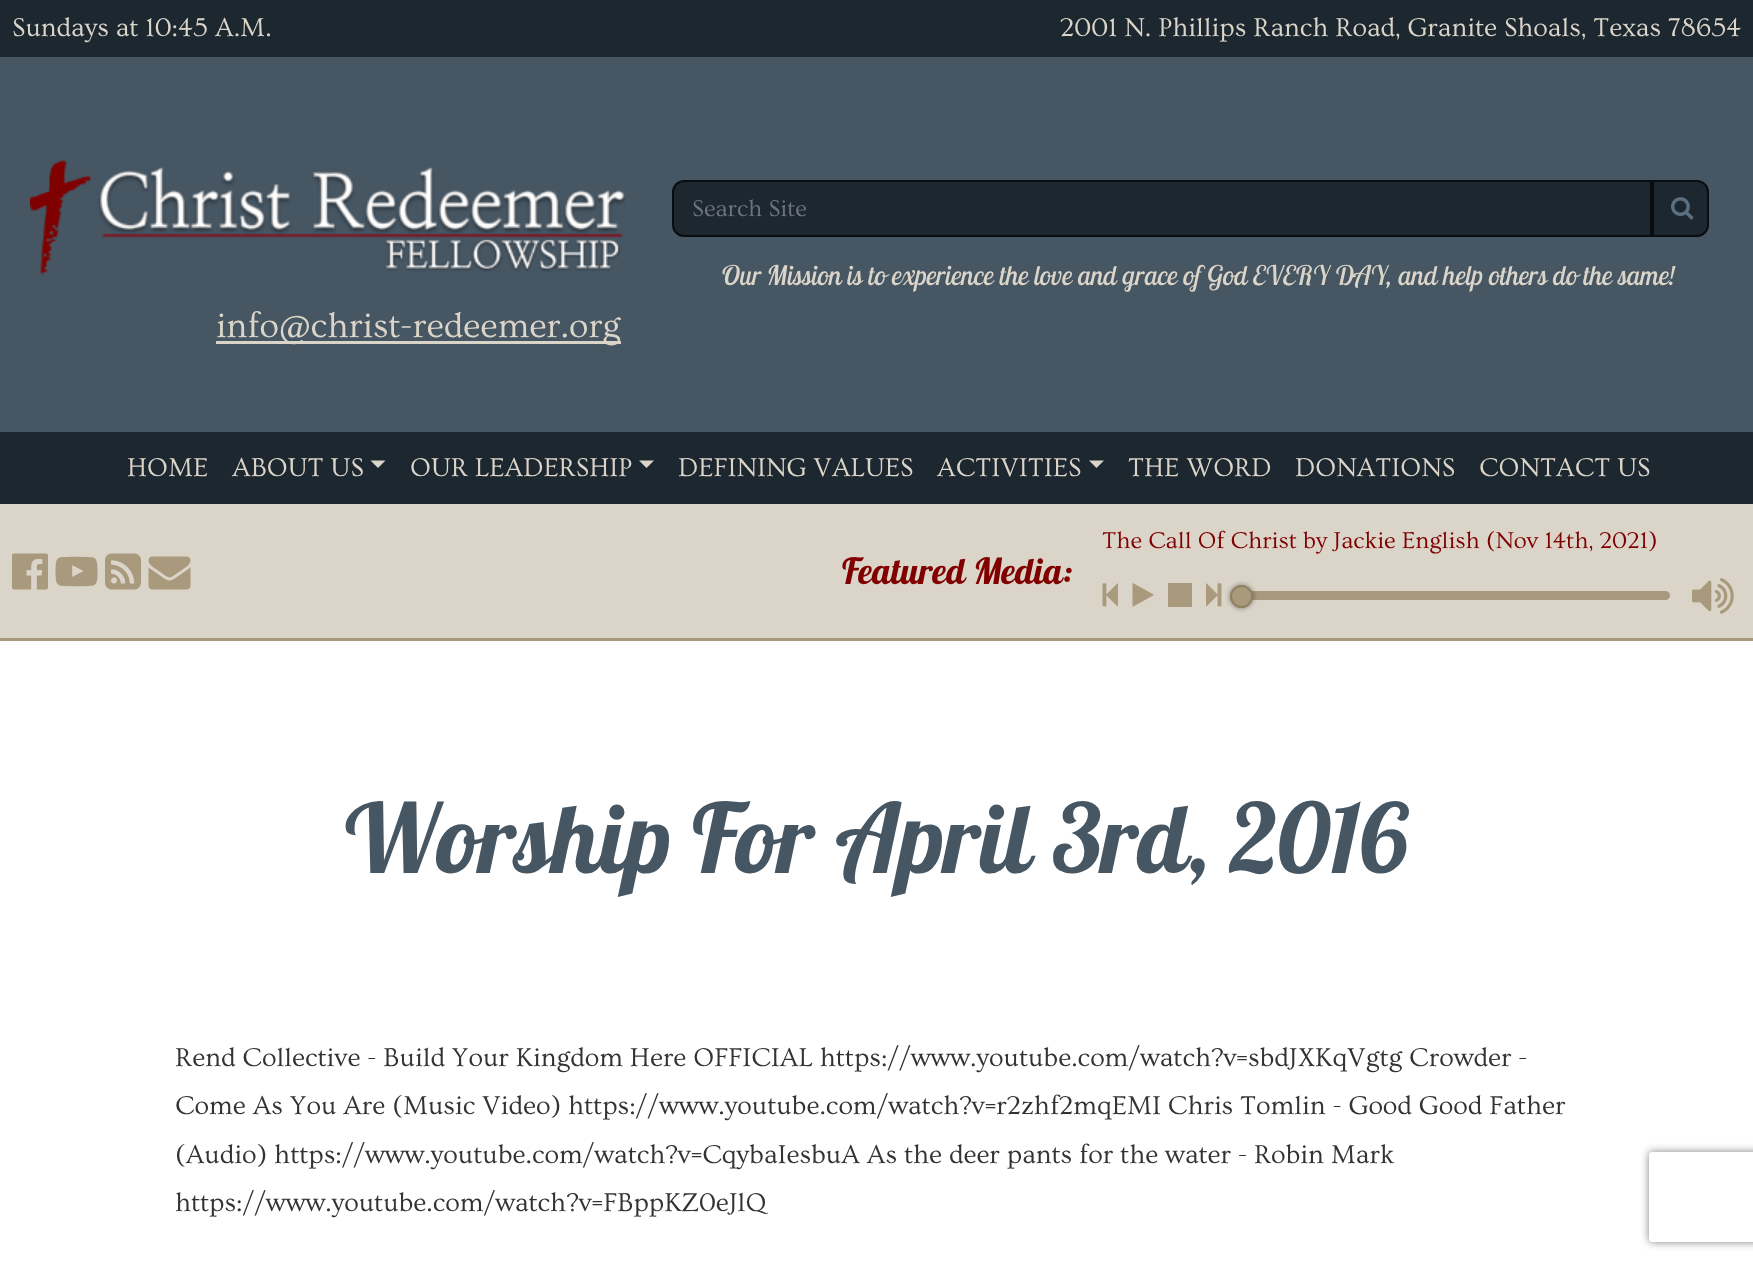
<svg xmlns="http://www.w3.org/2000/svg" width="1753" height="1262">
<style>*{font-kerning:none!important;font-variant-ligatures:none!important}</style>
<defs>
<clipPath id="clip1"><path d="M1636 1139h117v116h-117zm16 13h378c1.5 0 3 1.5 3 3v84c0 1.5-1.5 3-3 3h-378c-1.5 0-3-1.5-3-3v-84c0-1.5 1.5-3 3-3z" clip-rule="evenodd"/></clipPath>
</defs>
<rect width="100%" height="100%" fill="#fff"/>
<rect width="1753" height="57" fill="#1d2730"/>
<text x="12" y="36" style="font-family:Ovo;font-size:27px;fill:#dbd5c9">Sundays at 10:45 A.M.</text>
<text x="1060" y="36" style="font-family:Ovo;font-size:27px;fill:#dbd5c9">2001 N. Phillips Ranch Road, Granite Shoals, Texas 78654</text>
<rect y="57" width="1753" height="375" fill="#465663"/>
<path d="M684 181h967v55h-967c-6 0-11-5-11-11v-33c0-6 5-11 11-11z" fill="#1d2730" stroke="#0a0d10" stroke-width="2"/>
<text x="692" y="216" style="font-family:Ovo;font-size:24px;fill:#6c757d">Search Site</text>
<path d="M1653 181h44c6 0 11 5 11 11v33c0 6-5 11-11 11h-44z" fill="#1d2730" stroke="#0a0d10" stroke-width="2"/>
<image x="1671" y="197" width="23" height="23" href="media/1.png"/>
<text x="721" y="285" style="font-family:Lobster Two;font-size:27px;font-style:italic;fill:#dbd5c9">Our Mission is to experience the love and grace of God EVERY DAY, and help others do the same!</text>
<image x="30" y="160" width="596" height="115" href="media/2.png"/>
<rect x="216" y="341" width="405" height="3" fill="#dbd5c9"/>
<text x="216" y="337" style="font-family:Ovo;font-size:36px;fill:#dbd5c9">info@christ-redeemer.org</text>
<rect y="432" width="1753" height="72" fill="#1d2730"/>
<text x="127" y="476" style="font-family:Ovo;font-size:27px;fill:#dbd5c9">HOME</text>
<text x="232" y="476" style="font-family:Ovo;font-size:27px;fill:#dbd5c9">ABOUT US</text>
<path d="M370.5 460.5h15l-7.5 7.5z" fill="#dbd5c9"/>
<text x="410" y="476" style="font-family:Ovo;font-size:27px;fill:#dbd5c9">OUR LEADERSHIP</text>
<path d="M639 460.5h15l-7.5 7.5z" fill="#dbd5c9"/>
<text x="678" y="476" style="font-family:Ovo;font-size:27px;fill:#dbd5c9">DEFINING VALUES</text>
<text x="937" y="476" style="font-family:Ovo;font-size:27px;fill:#dbd5c9">ACTIVITIES</text>
<path d="M1089 460.5h15l-7.5 7.5z" fill="#dbd5c9"/>
<text x="1128" y="476" style="font-family:Ovo;font-size:27px;fill:#dbd5c9">THE WORD</text>
<text x="1295" y="476" style="font-family:Ovo;font-size:27px;fill:#dbd5c9">DONATIONS</text>
<text x="1479" y="476" style="font-family:Ovo;font-size:27px;fill:#dbd5c9">CONTACT US</text>
<rect y="504" width="1753" height="134" fill="#dbd5c9"/>
<rect y="638" width="1753" height="3" fill="#a99a7d"/>
<image x="12" y="553" width="36" height="37" href="media/3.png"/>
<image x="55" y="556" width="43" height="31" href="media/4.png"/>
<image x="105" y="553" width="36" height="37" href="media/5.png"/>
<image x="148" y="556" width="43" height="34" href="media/6.png"/>
<text x="1102" y="548" style="font-family:Ovo;font-size:24px;fill:#800000">The Call Of Christ by Jackie English (Nov 14th, 2021)</text>
<image x="1102" y="583" width="16" height="24" href="media/7.png"/>
<image x="1132" y="583" width="22" height="24" href="media/8.png"/>
<rect x="1168" y="583" width="24" height="24" fill="#a99a7d"/>
<image x="1206" y="583" width="16" height="24" href="media/9.png"/>
<rect x="1245" y="591" width="425" height="9" rx="4.5" fill="#a99a7d"/>
<rect x="1229" y="584" width="25" height="25" rx="12.5" fill="#0000004d" filter="blur(2px)"/>
<circle cx="1241.5" cy="596.5" r="10.5" fill="#a99a7d" stroke="#928161" stroke-width="2"/>
<image x="1692" y="578" width="42" height="36" href="media/10.png"/>
<text x="842" y="584" style="font-family:Lobster;font-size:36px;fill:#800000">Featured Media:</text>
<text x="345" y="873" style="font-family:Lobster;font-size:96px;fill:#465663">Worship For April 3rd, 2016</text>
<text x="175" y="1066" style="font-family:Ovo;font-size:27px;fill:#333">Rend Collective - Build Your Kingdom Here OFFICIAL https://www.youtube.com/watch?v=sbdJXKqVgtg Crowder -</text>
<text x="175" y="1114" style="font-family:Ovo;font-size:27px;fill:#333">Come As You Are (Music Video) https://www.youtube.com/watch?v=r2zhf2mqEMI Chris Tomlin - Good Good Father</text>
<text x="175" y="1163" style="font-family:Ovo;font-size:27px;fill:#333">(Audio) https://www.youtube.com/watch?v=CqybaIesbuA As the deer pants for the water - Robin Mark</text>
<text x="175" y="1211" style="font-family:Ovo;font-size:27px;fill:#333">https://www.youtube.com/watch?v=FBppKZ0eJlQ</text>
<g clip-path="url(#clip1)">
<rect x="1649" y="1152" width="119" height="90" rx="3" fill="#808080" filter="blur(4px)"/>
</g>
</svg>
